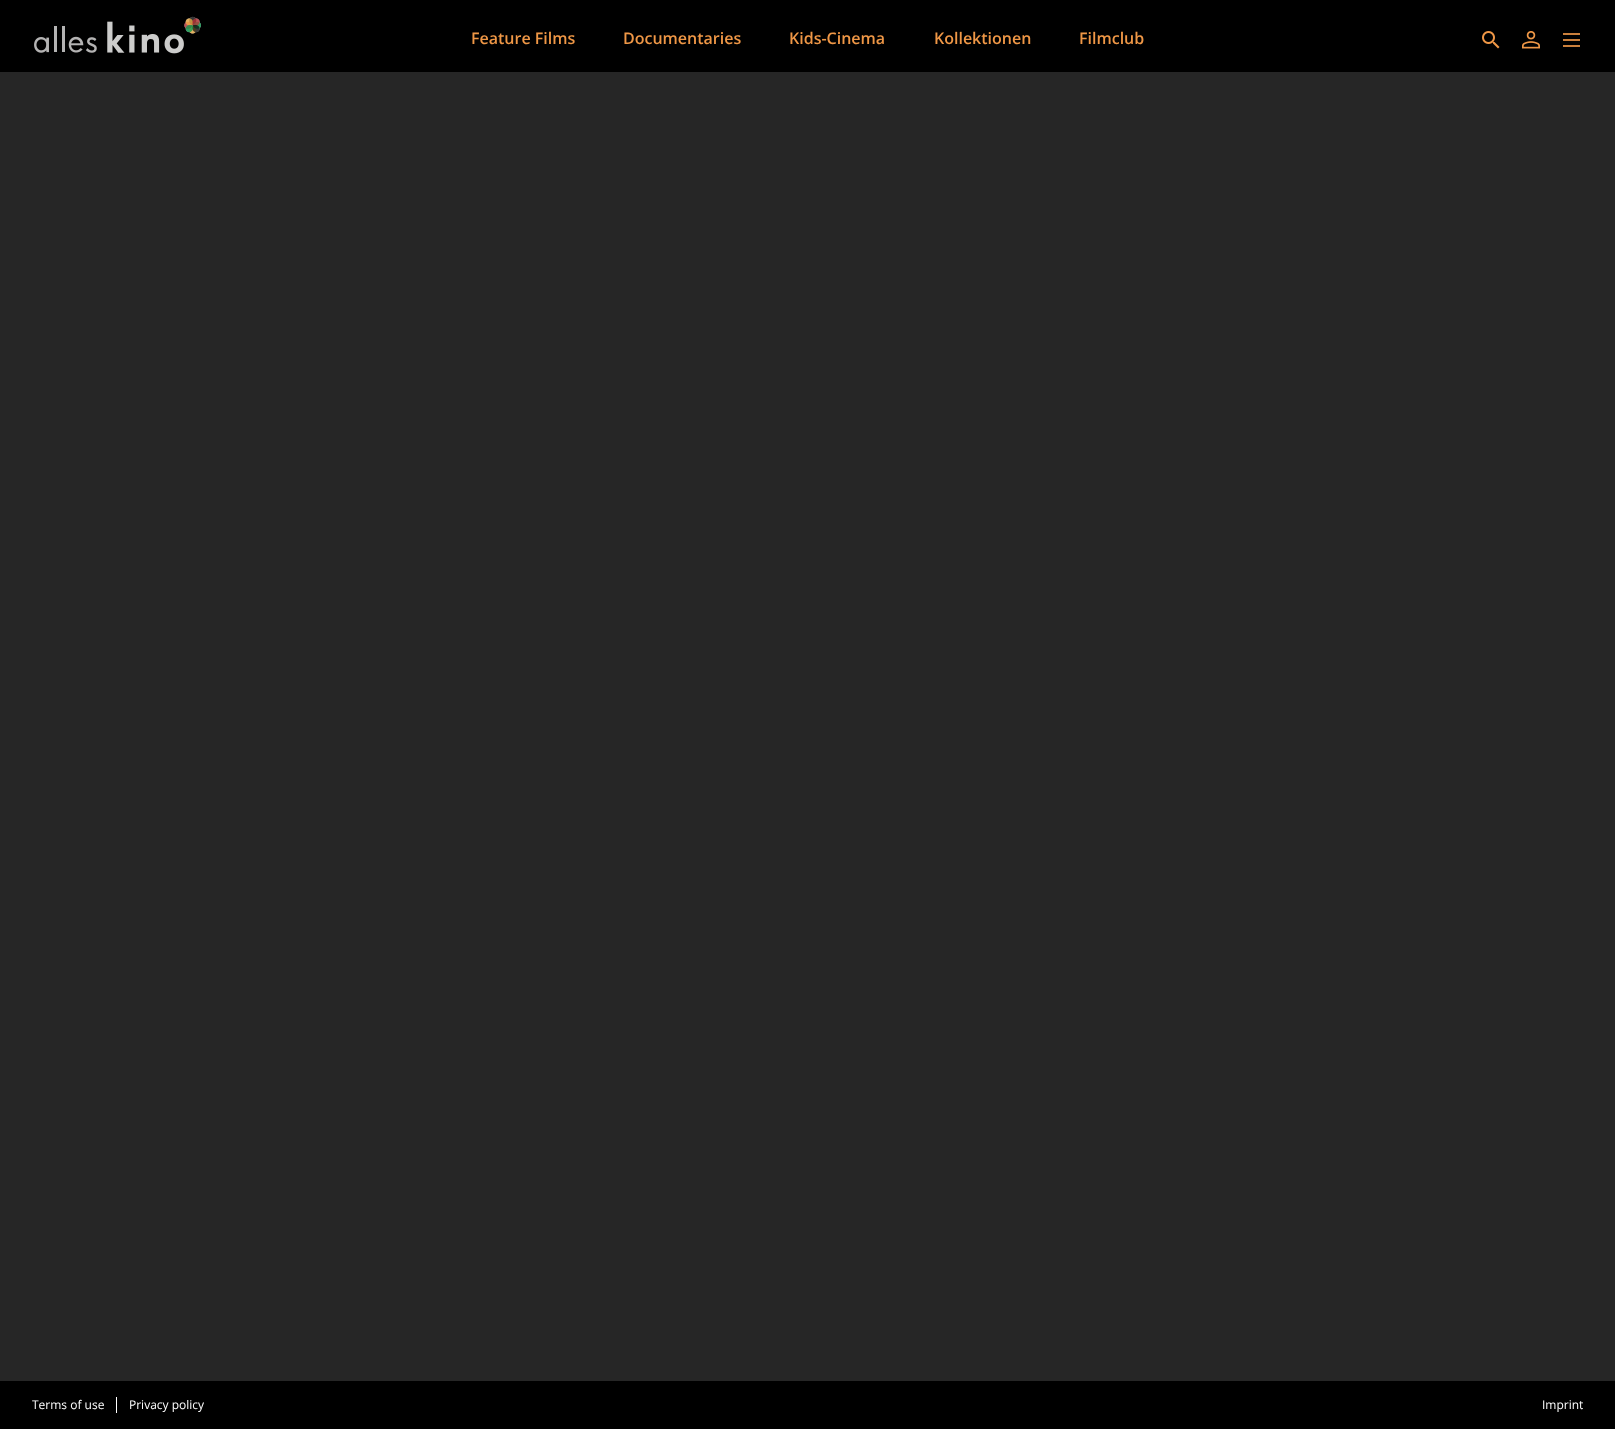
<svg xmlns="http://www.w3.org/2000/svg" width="1615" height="1429">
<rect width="100%" height="100%" fill="#262626"/>
<rect width="1615" height="72" fill="#000"/>
<image x="34" y="16" width="167" height="38" href="media/1.png"/>
<text x="471" y="44" style="font-family:Open Sans;font-size:16px;font-weight:600;fill:#ef9746">Feature Films</text>
<text x="623" y="44" style="font-family:Open Sans;font-size:16px;font-weight:600;fill:#ef9746">Documentaries</text>
<text x="789" y="44" style="font-family:Open Sans;font-size:16px;font-weight:600;fill:#ef9746">Kids-Cinema</text>
<text x="934" y="44" style="font-family:Open Sans;font-size:16px;font-weight:600;fill:#ef9746">Kollektionen</text>
<text x="1079" y="44" style="font-family:Open Sans;font-size:16px;font-weight:600;fill:#ef9746">Filmclub</text>
<image x="1482" y="31" width="18" height="18" href="media/2.png"/>
<image x="1522" y="31" width="18" height="18" href="media/3.png"/>
<rect x="1563" y="33" width="17" height="2" fill="#cb803c"/>
<rect x="1563" y="39" width="17" height="2" fill="#cb803c"/>
<rect x="1563" y="45" width="17" height="2" fill="#cb803c"/>
<rect y="1381" width="1615" height="48" fill="#000"/>
<text x="32" y="1409" style="font-family:Open Sans;font-size:12px;fill:#fff">Terms of use</text>
<rect x="116" y="1397" width="1" height="16" fill="#fff"/>
<text x="129" y="1409" style="font-family:Open Sans;font-size:12px;fill:#fff">Privacy policy</text>
<text x="1542" y="1409" style="font-family:Open Sans;font-size:12px;fill:#fff">Imprint</text>
</svg>
